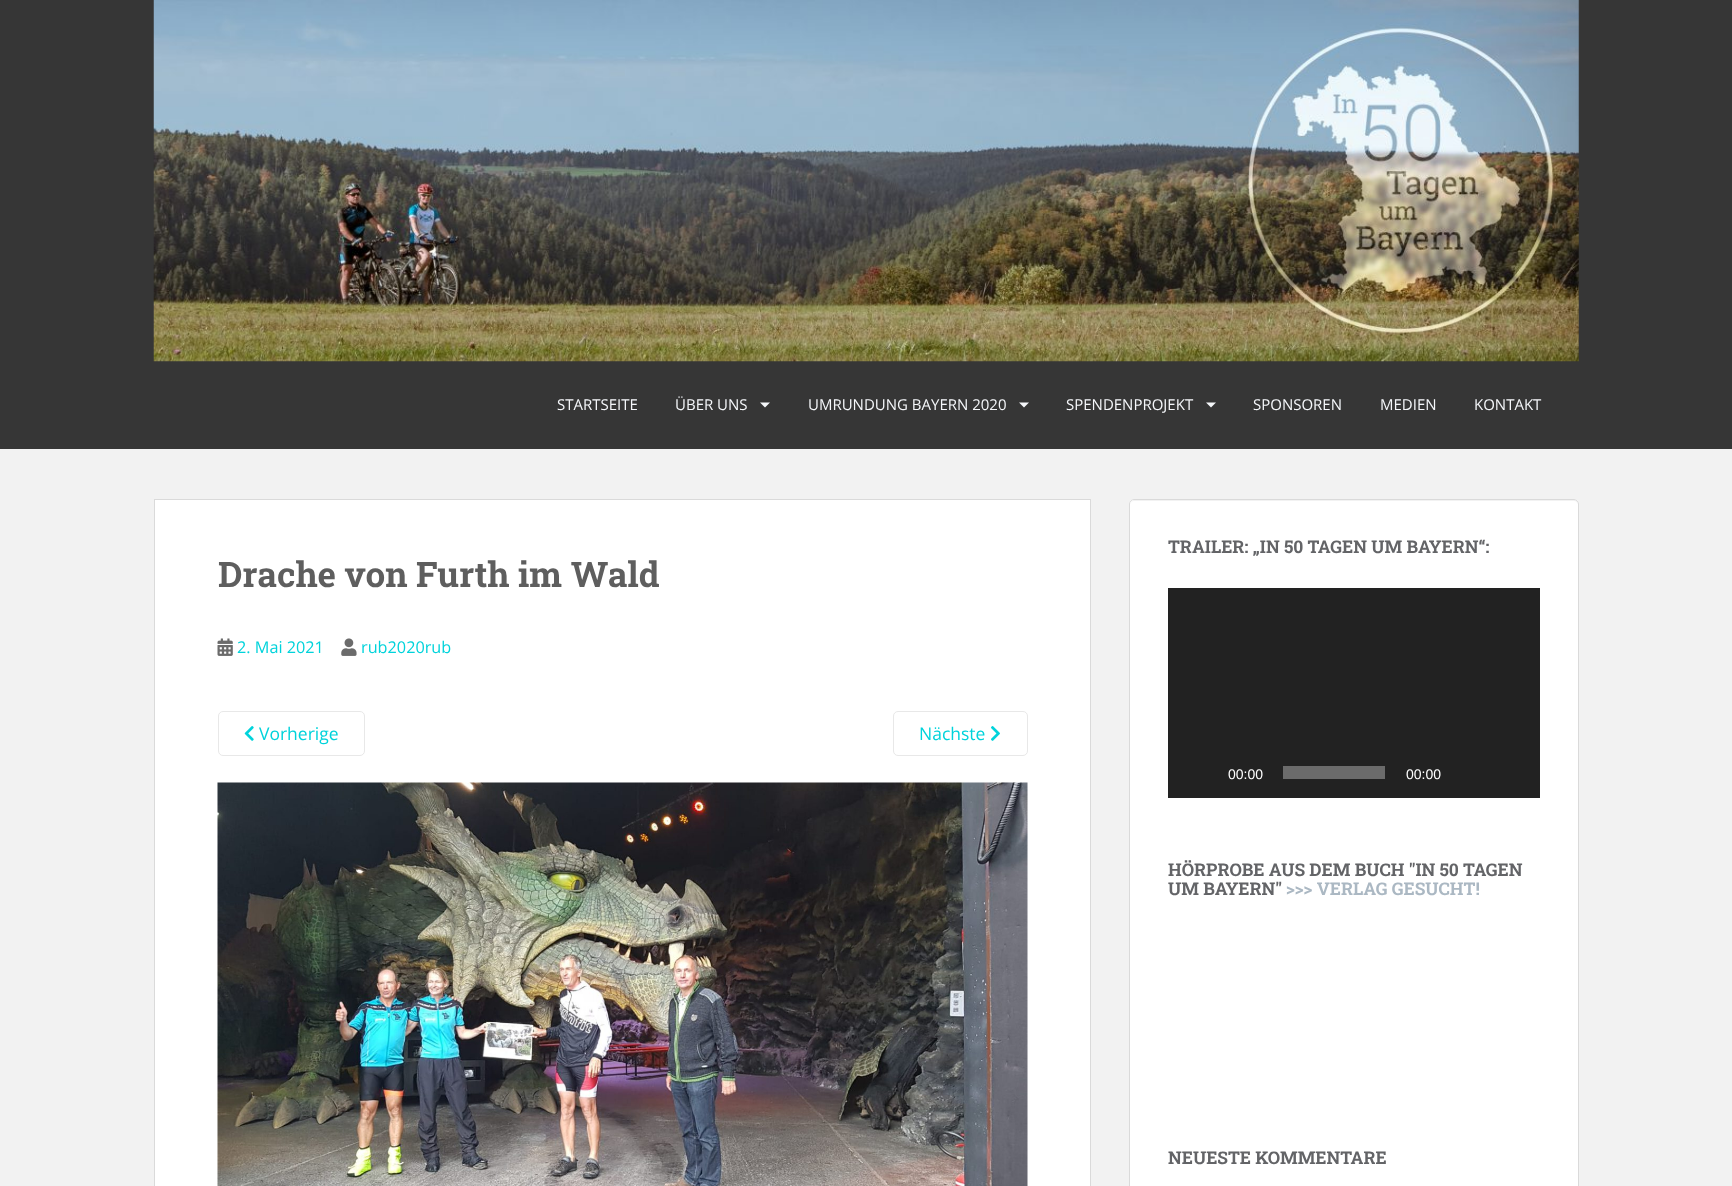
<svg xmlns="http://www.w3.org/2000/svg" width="1732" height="1186">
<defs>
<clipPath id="clip1"><rect x="1168" y="538" width="372" height="260"/></clipPath>
</defs>
<rect width="100%" height="100%" fill="#f2f2f2"/>
<rect width="1732" height="449" fill="#363636"/>
<image x="153" y="0" width="1426" height="362" href="media/1.png"/>
<text x="557" y="410" style="font-family:Open Sans;font-size:15px;fill:#f5f7fa">STARTSEITE</text>
<text x="675" y="410" style="font-family:Open Sans;font-size:15px;fill:#f5f7fa">ÜBER UNS</text>
<path d="M760 402.5h10l-5 5z" fill="#f5f7fa"/>
<text x="808" y="410" style="font-family:Open Sans;font-size:15px;fill:#f5f7fa">UMRUNDUNG BAYERN 2020</text>
<path d="M1019 402.5h10l-5 5z" fill="#f5f7fa"/>
<text x="1066" y="410" style="font-family:Open Sans;font-size:15px;fill:#f5f7fa">SPENDENPROJEKT</text>
<path d="M1206 402.5h10l-5 5z" fill="#f5f7fa"/>
<text x="1253" y="410" style="font-family:Open Sans;font-size:15px;fill:#f5f7fa">SPONSOREN</text>
<text x="1380" y="410" style="font-family:Open Sans;font-size:15px;fill:#f5f7fa">MEDIEN</text>
<text x="1474" y="410" style="font-family:Open Sans;font-size:15px;fill:#f5f7fa">KONTAKT</text>
<rect x="154.5" y="499.5" width="936" height="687" fill="#fff" stroke="#dadada"/>
<text x="218" y="587" style="font-family:Roboto Slab;font-size:35px;font-weight:bold;fill:#5e5e5e">Drache von Furth im Wald</text>
<image x="217" y="638" width="16" height="18" href="media/2.png"/>
<text x="237" y="653" style="font-family:Open Sans;font-size:16.25px;fill:#00d3db">2. Mai 2021</text>
<image x="341" y="638" width="16" height="18" href="media/3.png"/>
<text x="361" y="653" style="font-family:Open Sans;font-size:16.25px;fill:#00d3db">rub2020rub</text>
<rect x="218.5" y="711.5" width="146" height="44" rx="4.5" fill="none" stroke="#e8e8e8"/>
<image x="244" y="726" width="10" height="15" href="media/4.png"/>
<text x="259" y="740" style="font-family:Open Sans;font-size:17.5px;fill:#00d3db">Vorherige</text>
<rect x="893.5" y="711.5" width="134" height="44" rx="4.5" fill="none" stroke="#e8e8e8"/>
<text x="919" y="740" style="font-family:Open Sans;font-size:17.5px;fill:#00d3db">Nächste</text>
<image x="991" y="726" width="9" height="15" href="media/5.png"/>
<image x="217" y="782" width="811" height="404" href="media/6.png"/>
<rect x="1129" y="499" width="450" height="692" rx="5" fill="#fff"/>
<path d="M1134 501h440c2 0 4 2 4 4c0-3-1-5-4-5h-440l-2 1l-1 1l-1 3c0-2 2-4 4-4z" fill="#f2f2f2"/>
<rect x="1129.5" y="499.5" width="449" height="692" rx="4.5" fill="none" stroke="#dadada"/>
<g clip-path="url(#clip1)">
<text x="1168" y="553" style="font-family:Roboto Slab;font-size:17.5px;font-weight:bold;fill:#636467">TRAILER: „IN 50 TAGEN UM BAYERN“:</text>
</g>
<rect x="1168" y="588" width="372" height="210" fill="#222"/>
<text x="1228" y="779" style="font-family:Liberation Sans;font-size:14px;fill:#fff">00:00</text>
<rect x="1283" y="766" width="102" height="13" fill="#6b6b6b"/>
<text x="1406" y="779" style="font-family:Liberation Sans;font-size:14px;fill:#fff">00:00</text>
<text x="1168" y="876" style="font-family:Roboto Slab;font-size:17.5px;font-weight:bold;fill:#636467">HÖRPROBE AUS DEM BUCH "IN 50 TAGEN</text>
<text x="1168" y="895" style="font-family:Roboto Slab;font-size:17.5px;font-weight:bold;fill:#636467">UM BAYERN"</text>
<text x="1286" y="895" style="font-family:Roboto Slab;font-size:17.5px;font-weight:bold;fill:#abb8c3">&gt;&gt;&gt; VERLAG GESUCHT!</text>
<text x="1168" y="1164" style="font-family:Roboto Slab;font-size:17.5px;font-weight:bold;fill:#636467">NEUESTE KOMMENTARE</text>
</svg>
